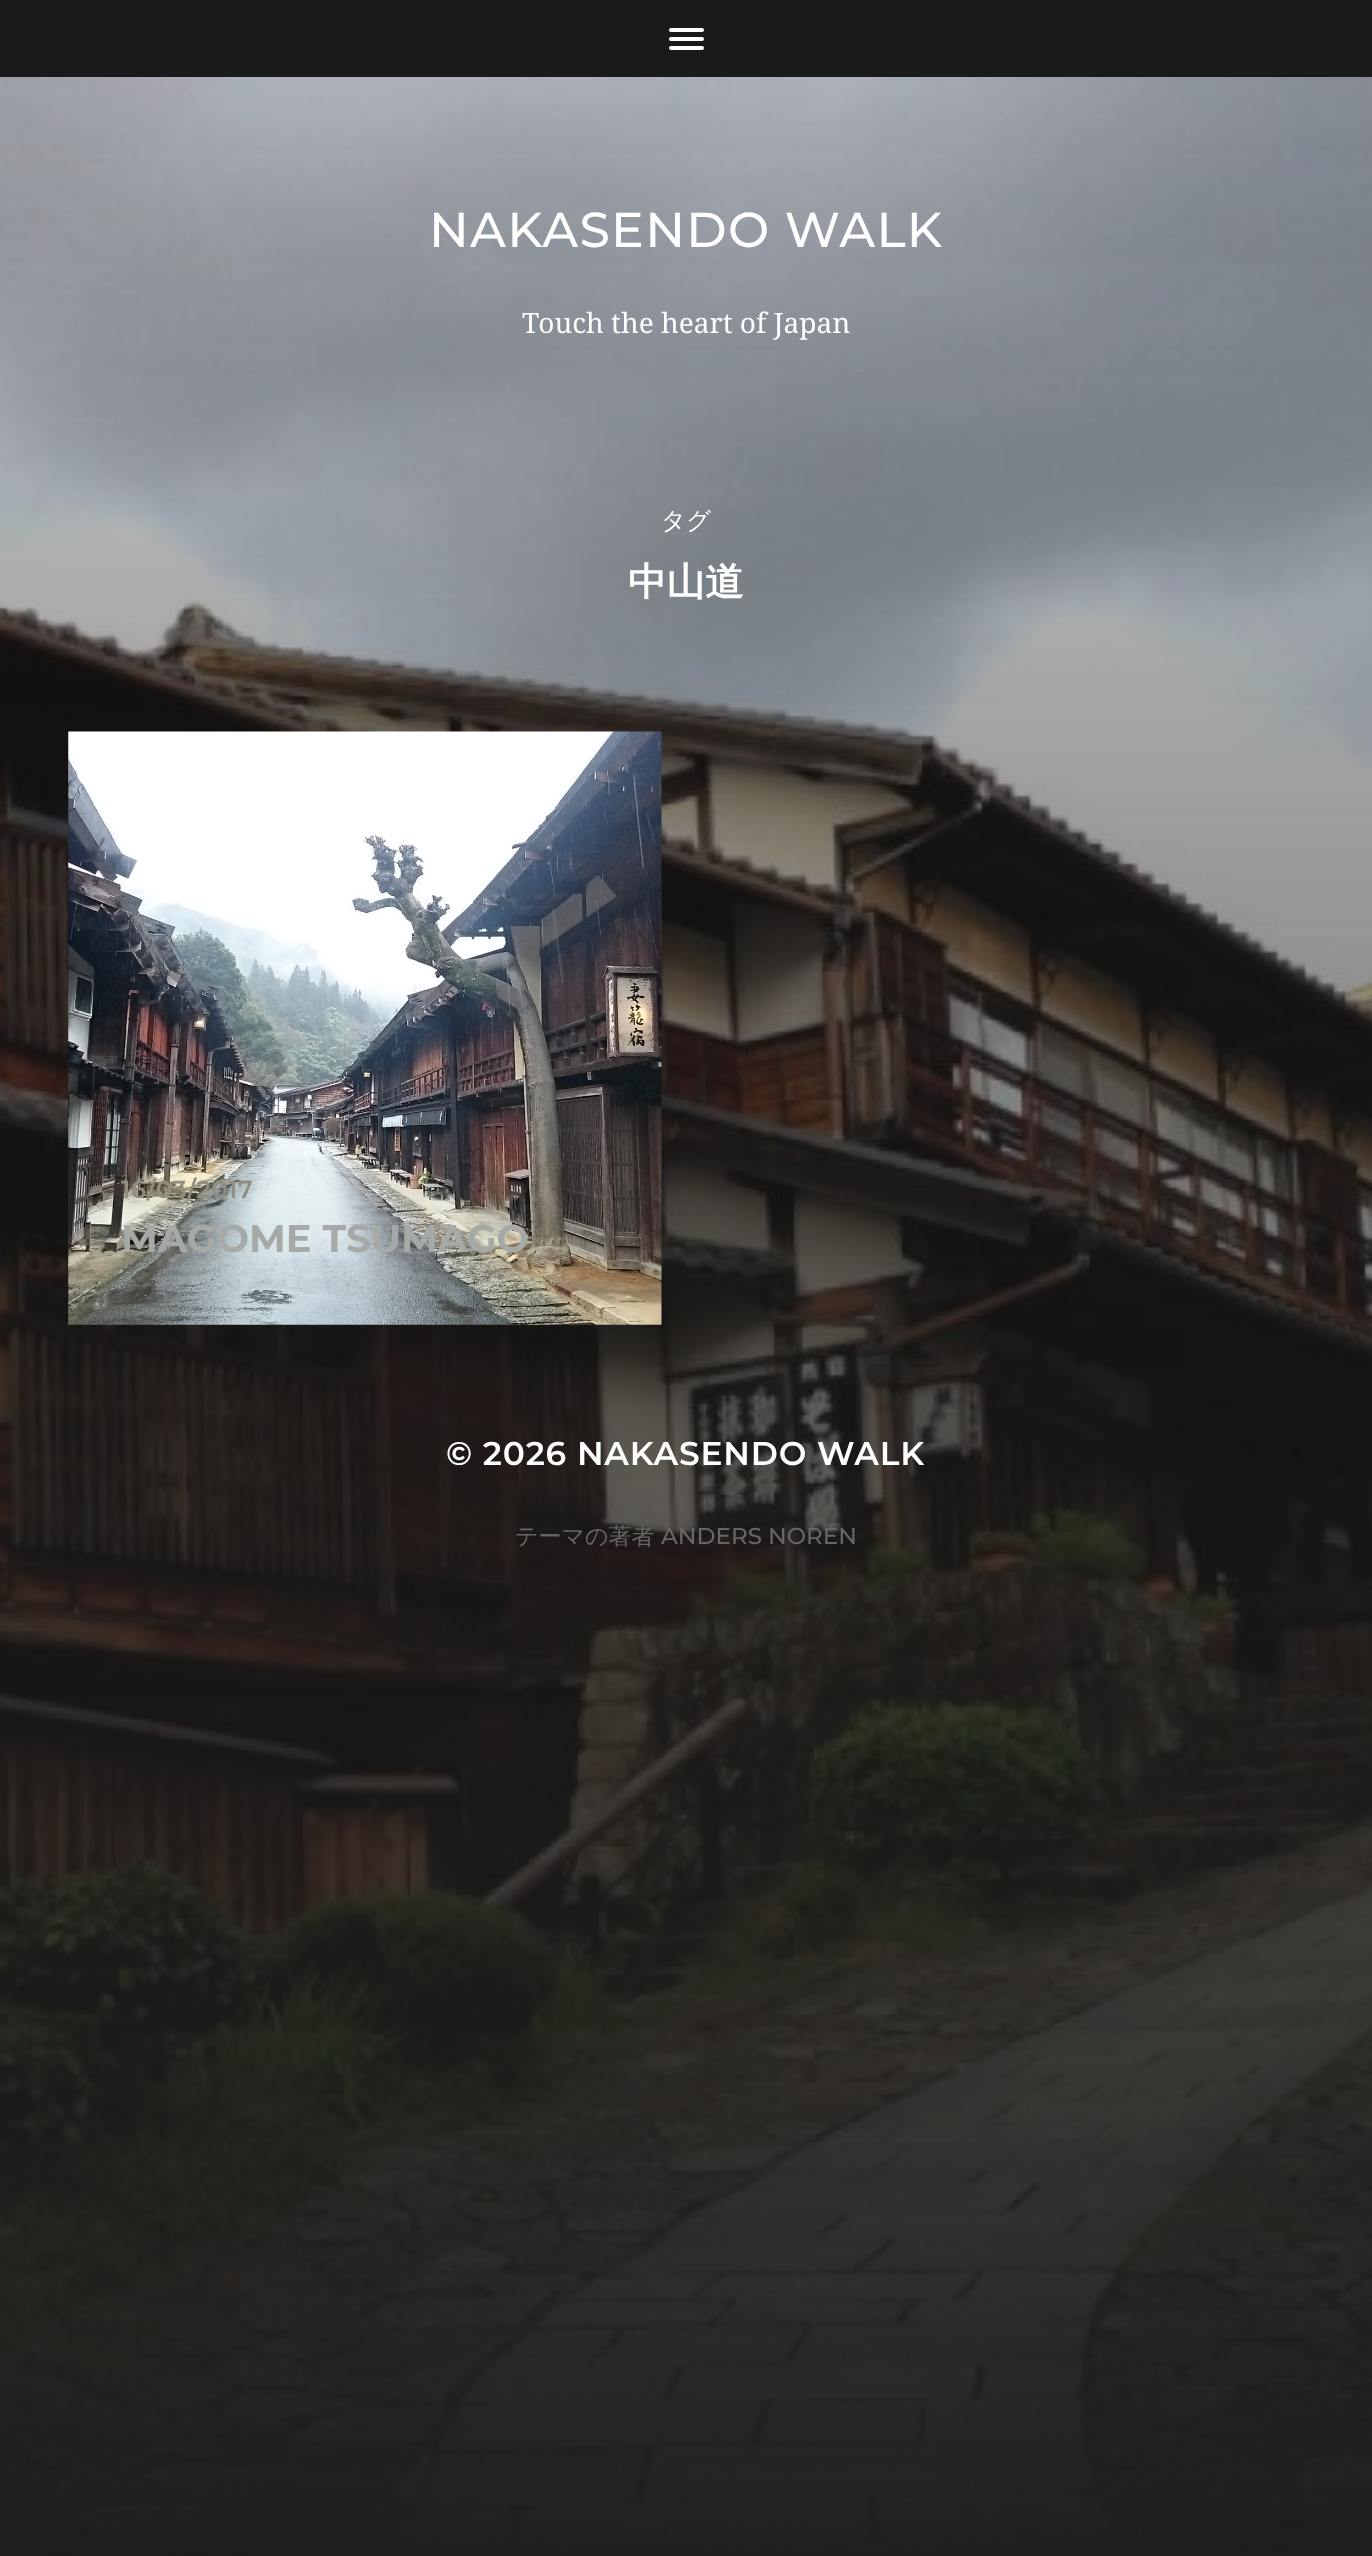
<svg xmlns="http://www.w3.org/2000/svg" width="1372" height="2556">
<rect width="100%" height="100%" fill="#1d1d1d"/>
<rect width="1372" height="77" rx="5" fill="#1a1a1a"/>
<rect x="669" y="28" width="35" height="4" rx="2" fill="#fff"/>
<rect x="669" y="37" width="35" height="4" rx="2" fill="#fff"/>
<rect x="669" y="46" width="35" height="4" rx="2" fill="#fff"/>
<image x="0" y="77" width="1372" height="2479" href="media/1.png"/>
<text x="429" y="247" style="font-family:Montserrat;font-size:49px;font-weight:500;letter-spacing:1.25px;fill:#fff">NAKASENDO WALK</text>
<text x="522" y="333" style="font-family:Droid Serif;font-size:28px;fill:#fff">Touch the heart of Japan</text>
<text x="661" y="529" style="font-family:WenQuanYi Zen Hei;font-size:24.5px;font-weight:500;fill:#fff">タグ</text>
<text x="628" y="595" style="font-family:WenQuanYi Zen Hei;font-size:38.5px;font-weight:bold;fill:#fff">中山道</text>
<image x="68" y="731" width="594" height="594" href="media/2.png"/>
<text x="121" y="1198" style="font-family:Montserrat;font-size:24.5px;font-weight:600;letter-spacing:0.4px;fill:#908e81">16/03/2017</text>
<text x="121" y="1252" style="font-family:Montserrat;font-size:38.5px;font-weight:bold;fill:#a5aaa7">MAGOME TSUMAGO</text>
<text x="446" y="1465" style="font-family:Montserrat;font-size:32.9px;font-weight:600;letter-spacing:0.8px;fill:#fff">© 2026 NAKASENDO WALK</text>
<text x="515" y="1544" style="font-family:WenQuanYi Zen Hei;font-size:23px;font-weight:500;fill:#666">テーマの著者</text>
<text x="661" y="1544" style="font-family:Montserrat;font-size:23px;font-weight:500;fill:#666">ANDERS NORÉN</text>
</svg>
